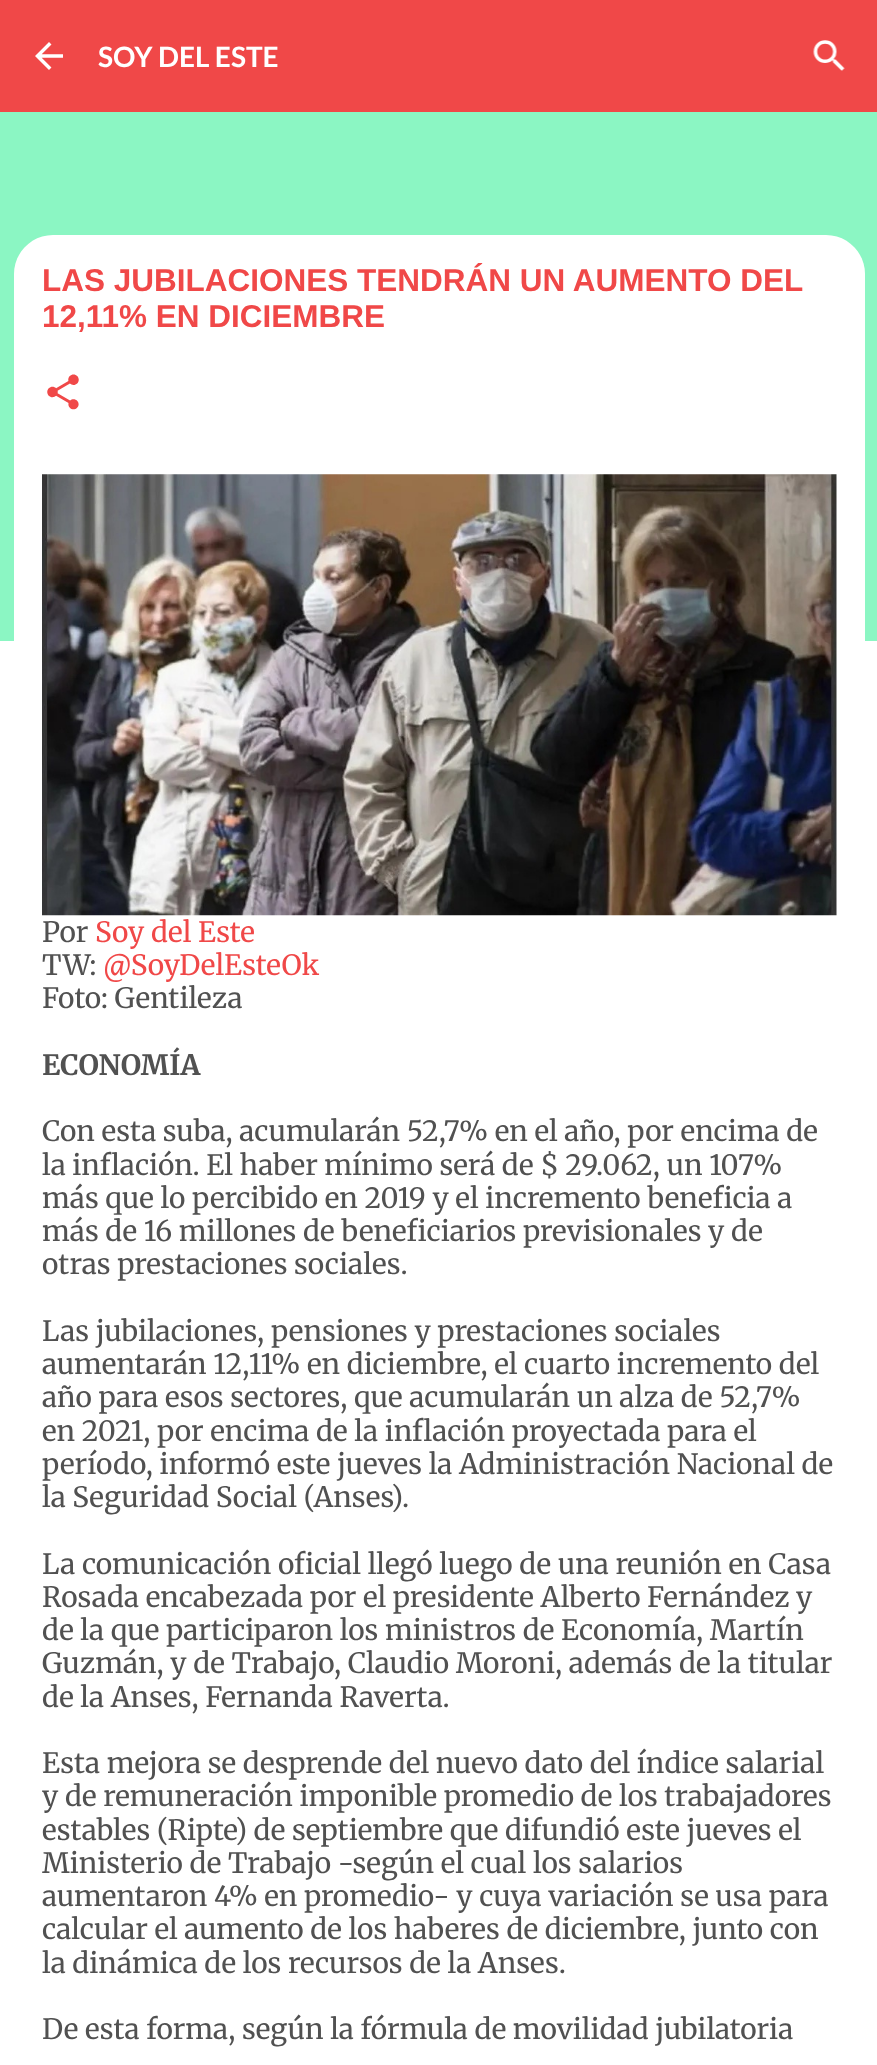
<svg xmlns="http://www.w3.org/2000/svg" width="877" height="2065">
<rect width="100%" height="100%" fill="#8bf6c3"/>
<rect width="877" height="112" fill="#f04848"/>
<image x="35" y="42" width="28" height="28" href="media/1.png"/>
<text x="98" y="67" style="font-family:Lato;font-size:28px;font-weight:bold;fill:#fff">SOY DEL ESTE</text>
<image x="813" y="40" width="32" height="31" href="media/2.png"/>
<rect y="641" width="877" height="1424" fill="#fff"/>
<path d="M53 235h773c21.5 0 39 17.5 39 39v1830h-851v-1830c0-21.5 17.5-39 39-39z" fill="#fff"/>
<text x="42" y="291" style="font-family:Liberation Sans;font-size:31.5px;font-weight:bold;fill:#f04848">LAS JUBILACIONES TENDRÁN UN AUMENTO DEL</text>
<text x="42" y="327" style="font-family:Liberation Sans;font-size:31.5px;font-weight:bold;fill:#f04848">12,11% EN DICIEMBRE</text>
<image x="47" y="374" width="32" height="36" href="media/3.png"/>
<image x="42" y="474" width="795" height="442" href="media/4.png"/>
<text x="42" y="942" style="font-family:Merriweather;font-size:28px;fill:#515151">Por</text>
<text x="95" y="942" style="font-family:Merriweather;font-size:28px;fill:#f04848">Soy del Este</text>
<text x="42" y="975" style="font-family:Merriweather;font-size:28px;fill:#515151">TW:</text>
<text x="103" y="975" style="font-family:Merriweather;font-size:28px;fill:#f04848">@SoyDelEsteOk</text>
<text x="42" y="1008" style="font-family:Merriweather;font-size:28px;fill:#515151">Foto: Gentileza</text>
<text x="42" y="1075" style="font-family:Merriweather;font-size:28px;font-weight:bold;fill:#515151">ECONOMÍA</text>
<text x="42" y="1141" style="font-family:Merriweather;font-size:28px;fill:#515151">Con esta suba, acumularán 52,7% en el año, por encima de</text>
<text x="42" y="1175" style="font-family:Merriweather;font-size:28px;fill:#515151">la inflación. El haber mínimo será de $ 29.062, un 107%</text>
<text x="42" y="1208" style="font-family:Merriweather;font-size:28px;fill:#515151">más que lo percibido en 2019 y el incremento beneficia a</text>
<text x="42" y="1241" style="font-family:Merriweather;font-size:28px;fill:#515151">más de 16 millones de beneficiarios previsionales y de</text>
<text x="42" y="1274" style="font-family:Merriweather;font-size:28px;fill:#515151">otras prestaciones sociales.</text>
<text x="42" y="1341" style="font-family:Merriweather;font-size:28px;fill:#515151">Las jubilaciones, pensiones y prestaciones sociales</text>
<text x="42" y="1374" style="font-family:Merriweather;font-size:28px;fill:#515151">aumentarán 12,11% en diciembre, el cuarto incremento del</text>
<text x="42" y="1407" style="font-family:Merriweather;font-size:28px;fill:#515151">año para esos sectores, que acumularán un alza de 52,7%</text>
<text x="42" y="1441" style="font-family:Merriweather;font-size:28px;fill:#515151">en 2021, por encima de la inflación proyectada para el</text>
<text x="42" y="1474" style="font-family:Merriweather;font-size:28px;fill:#515151">período, informó este jueves la Administración Nacional de</text>
<text x="42" y="1507" style="font-family:Merriweather;font-size:28px;fill:#515151">la Seguridad Social (Anses).</text>
<text x="42" y="1574" style="font-family:Merriweather;font-size:28px;fill:#515151">La comunicación oficial llegó luego de una reunión en Casa</text>
<text x="42" y="1607" style="font-family:Merriweather;font-size:28px;fill:#515151">Rosada encabezada por el presidente Alberto Fernández y</text>
<text x="42" y="1640" style="font-family:Merriweather;font-size:28px;fill:#515151">de la que participaron los ministros de Economía, Martín</text>
<text x="42" y="1673" style="font-family:Merriweather;font-size:28px;fill:#515151">Guzmán, y de Trabajo, Claudio Moroni, además de la titular</text>
<text x="42" y="1707" style="font-family:Merriweather;font-size:28px;fill:#515151">de la Anses, Fernanda Raverta.</text>
<text x="42" y="1773" style="font-family:Merriweather;font-size:28px;fill:#515151">Esta mejora se desprende del nuevo dato del índice salarial</text>
<text x="42" y="1806" style="font-family:Merriweather;font-size:28px;fill:#515151">y de remuneración imponible promedio de los trabajadores</text>
<text x="42" y="1840" style="font-family:Merriweather;font-size:28px;fill:#515151">estables (Ripte) de septiembre que difundió este jueves el</text>
<text x="42" y="1873" style="font-family:Merriweather;font-size:28px;fill:#515151">Ministerio de Trabajo -según el cual los salarios</text>
<text x="42" y="1906" style="font-family:Merriweather;font-size:28px;fill:#515151">aumentaron 4% en promedio- y cuya variación se usa para</text>
<text x="42" y="1939" style="font-family:Merriweather;font-size:28px;fill:#515151">calcular el aumento de los haberes de diciembre, junto con</text>
<text x="42" y="1973" style="font-family:Merriweather;font-size:28px;fill:#515151">la dinámica de los recursos de la Anses.</text>
<text x="42" y="2039" style="font-family:Merriweather;font-size:28px;fill:#515151">De esta forma, según la fórmula de movilidad jubilatoria</text>
</svg>
